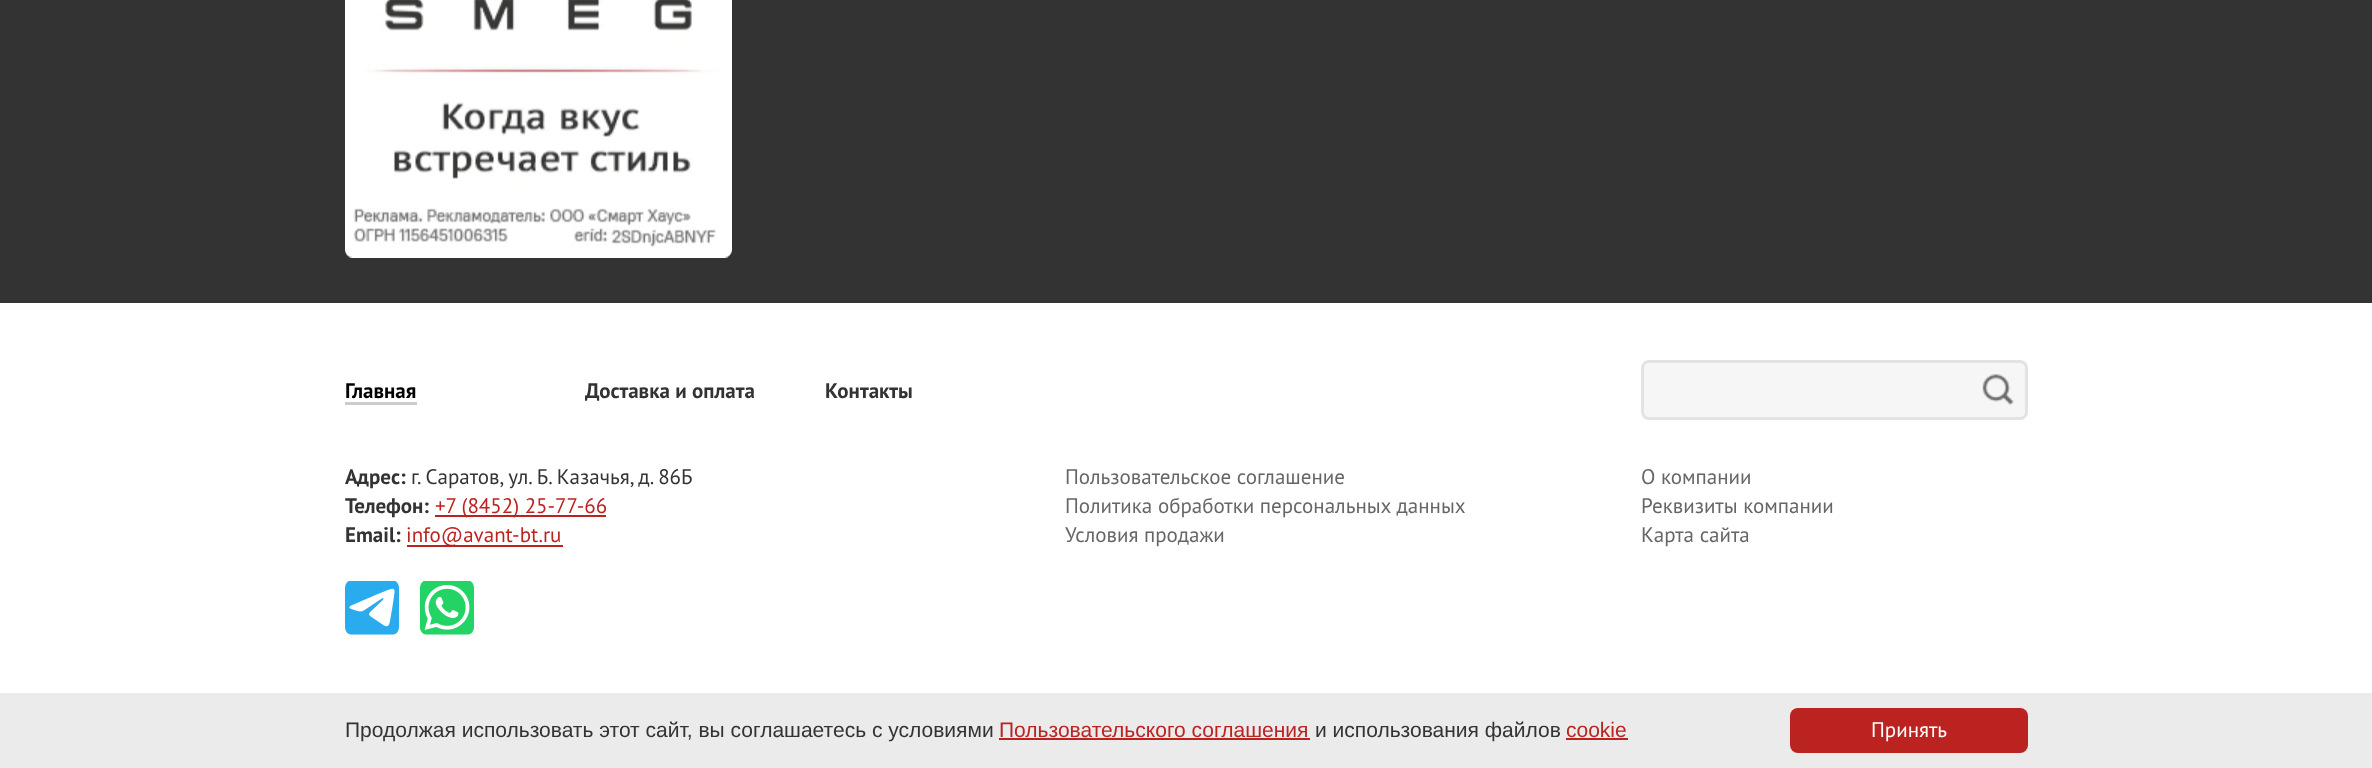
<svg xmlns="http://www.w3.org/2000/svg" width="2372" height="768">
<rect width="100%" height="100%" fill="#333"/>
<image x="345" y="0" width="387" height="258" href="media/1.png"/>
<rect y="303" width="2372" height="390" fill="#fff"/>
<rect x="345" y="402" width="72" height="3" fill="#ccc"/>
<text x="345" y="398" style="font-family:PT Sans;font-size:21px;font-weight:bold;fill:#000">Главная</text>
<text x="585" y="398" style="font-family:PT Sans;font-size:21px;font-weight:bold;fill:#333">Доставка и оплата</text>
<text x="825" y="398" style="font-family:PT Sans;font-size:21px;font-weight:bold;fill:#333">Контакты</text>
<rect x="1642.5" y="361.5" width="384" height="57" rx="6.5" fill="#f6f6f6" stroke="#e3e3e3" stroke-width="3"/>
<image x="1982" y="374" width="32" height="31" href="media/2.png"/>
<text x="345" y="484" style="font-family:PT Sans;font-size:21px;font-weight:bold;fill:#333">Адрес:</text>
<text x="411" y="484" style="font-family:PT Sans;font-size:21px;fill:#333">г. Саратов, ул. Б. Казачья, д. 86Б</text>
<text x="345" y="513" style="font-family:PT Sans;font-size:21px;font-weight:bold;fill:#333">Телефон:</text>
<rect x="435" y="515" width="171" height="2" fill="#bb2320"/>
<text x="435" y="513" style="font-family:PT Sans;font-size:21px;fill:#bb2320">+7 (8452) 25-77-66</text>
<text x="345" y="542" style="font-family:PT Sans;font-size:21px;font-weight:bold;fill:#333">Email:</text>
<rect x="407" y="545" width="156" height="2" fill="#bb2320"/>
<text x="406" y="542" style="font-family:PT Sans;font-size:21px;fill:#bb2320">info@avant-bt.ru</text>
<image x="345" y="581" width="54" height="54" href="media/3.png"/>
<image x="420" y="581" width="54" height="54" href="media/4.png"/>
<text x="1065" y="484" style="font-family:PT Sans;font-size:21px;fill:#666">Пользовательское соглашение</text>
<text x="1065" y="513" style="font-family:PT Sans;font-size:21px;fill:#666">Политика обработки персональных данных</text>
<text x="1065" y="542" style="font-family:PT Sans;font-size:21px;fill:#666">Условия продажи</text>
<text x="1641" y="484" style="font-family:PT Sans;font-size:21px;fill:#666">О компании</text>
<text x="1641" y="513" style="font-family:PT Sans;font-size:21px;fill:#666">Реквизиты компании</text>
<text x="1641" y="542" style="font-family:PT Sans;font-size:21px;fill:#666">Карта сайта</text>
<rect y="693" width="2372" height="75" fill="#ebebeb"/>
<text x="345" y="737" style="font-family:Liberation Sans;font-size:21px;fill:#333">Продолжая использовать этот сайт, вы соглашаетесь с условиями</text>
<text x="999" y="737" style="font-family:Liberation Sans;font-size:21px;fill:#bb2320">Пользовательского соглашения</text>
<rect x="999" y="738" width="311" height="2" fill="#bb2320"/>
<text x="1315" y="737" style="font-family:Liberation Sans;font-size:21px;fill:#333">и использования файлов</text>
<text x="1566" y="737" style="font-family:Liberation Sans;font-size:21px;fill:#bb2320">cookie</text>
<rect x="1566" y="738" width="62" height="2" fill="#bb2320"/>
<rect x="1790" y="708" width="238" height="45" rx="8" fill="#bb2320"/>
<text x="1871" y="737" style="font-family:PT Sans;font-size:21px;fill:#fff">Принять</text>
</svg>
